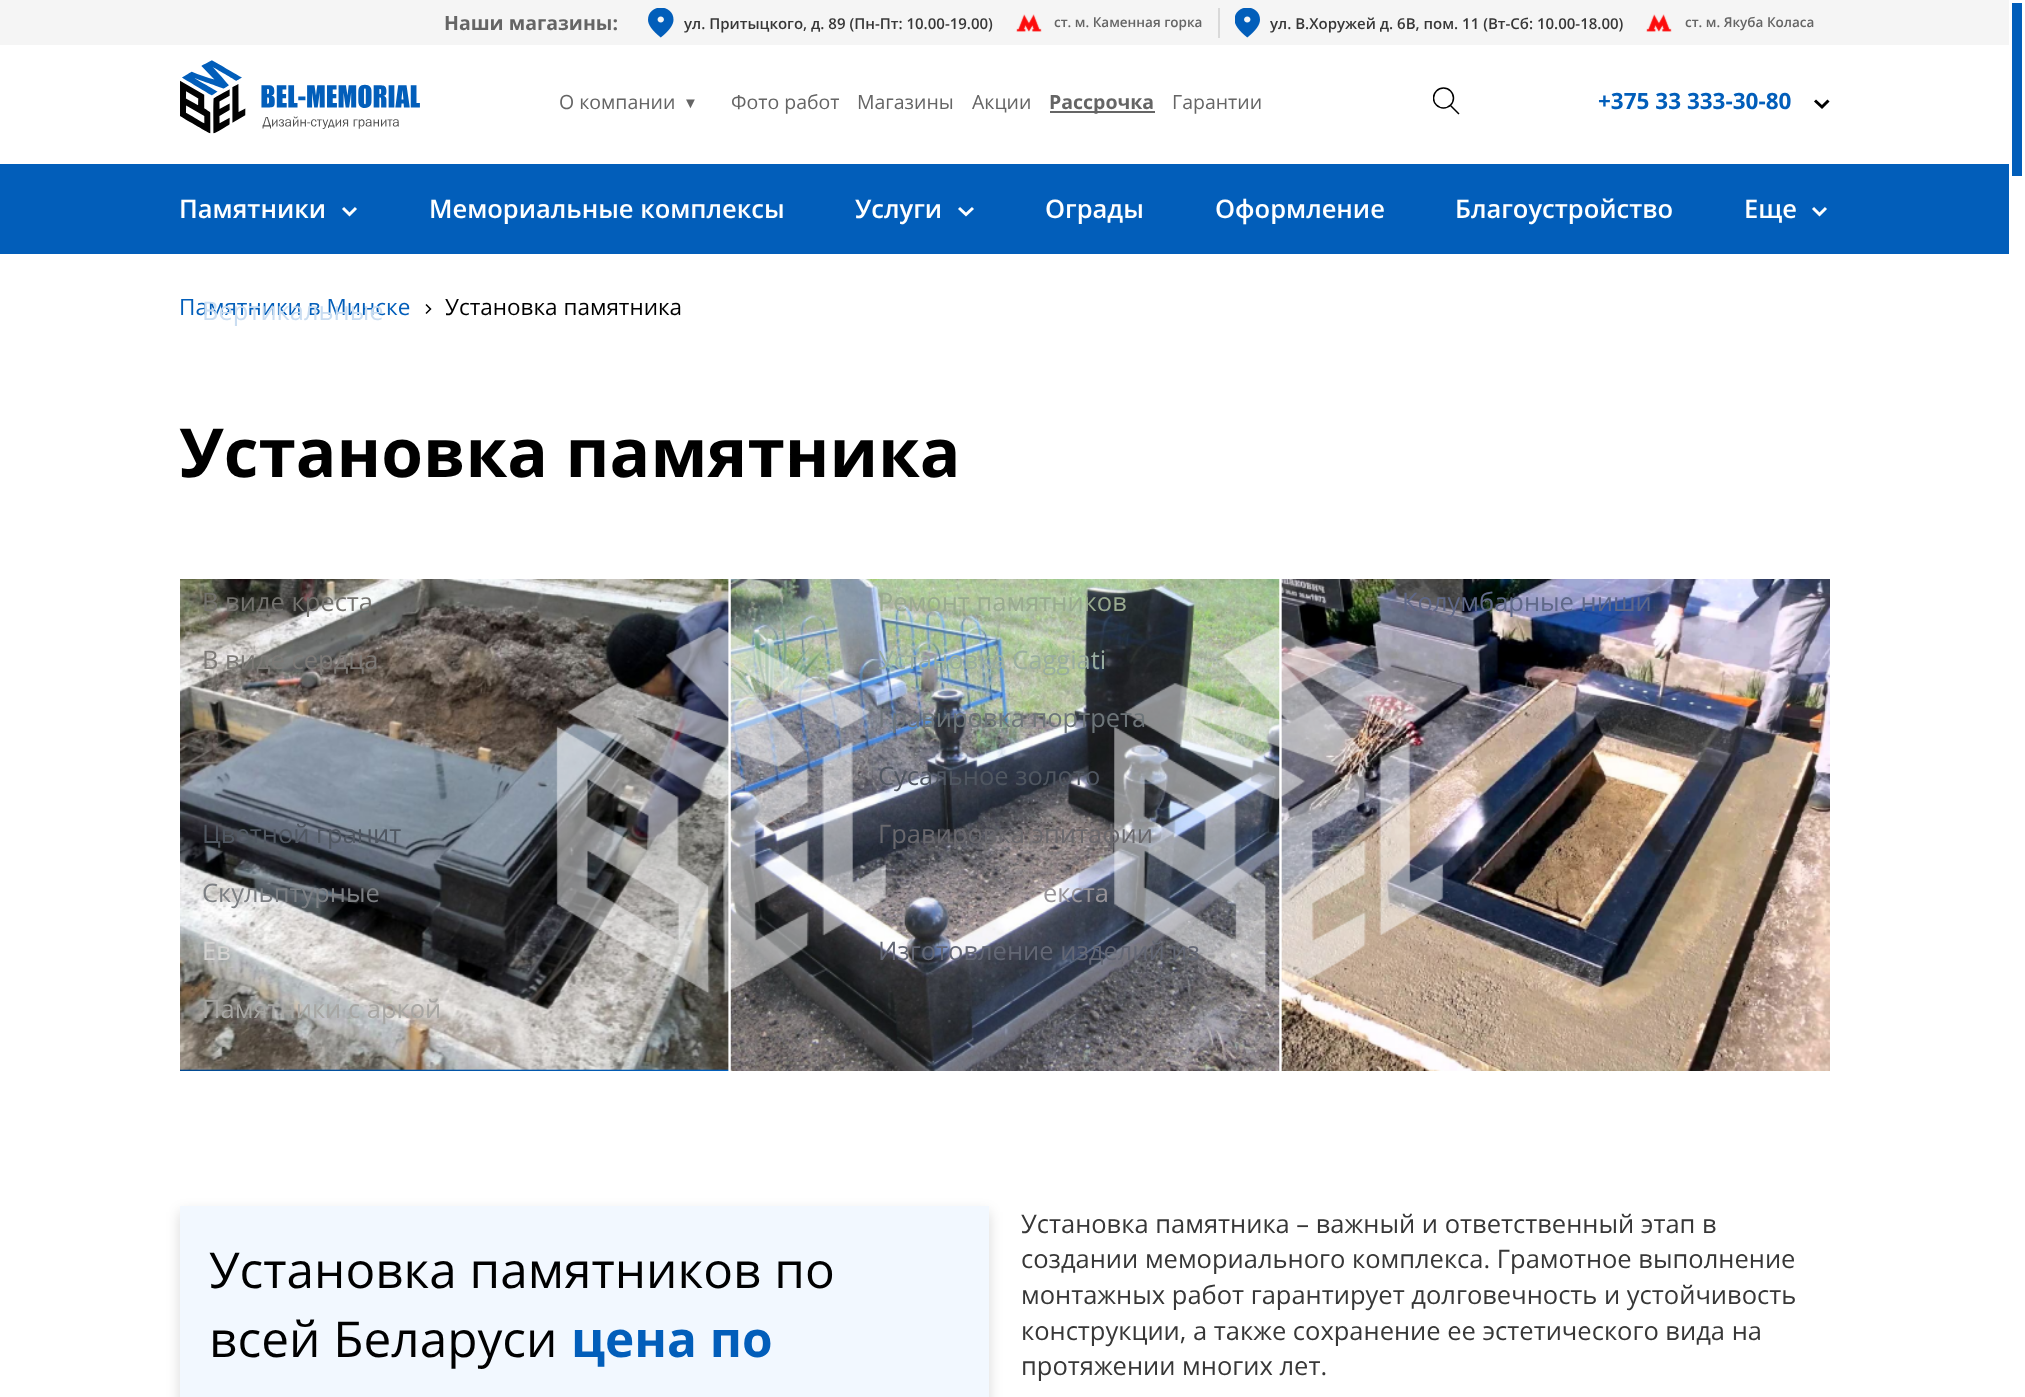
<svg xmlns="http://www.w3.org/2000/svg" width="2025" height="1397">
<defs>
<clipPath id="clip1"><rect x="1433" y="87" width="27" height="29"/></clipPath>
</defs>
<rect width="100%" height="100%" fill="#fff"/>
<rect width="2009" height="45" fill="#f5f5f5"/>
<text x="444" y="30" style="font-family:Open Sans;font-size:19.5px;font-weight:bold;fill:#656565">Наши магазины:</text>
<rect x="1218" y="8" width="2" height="30" fill="#d9d9d9"/>
<image x="648" y="8" width="26" height="30" href="media/1.png"/>
<text x="684" y="29" style="font-family:Open Sans;font-size:15px;font-weight:600;fill:#373737">ул. Притыцкого, д. 89 (Пн-Пт: 10.00-19.00)</text>
<image x="1016" y="14" width="26" height="18" href="media/2.png"/>
<text x="1054" y="27" style="font-family:Open Sans;font-size:13.5px;font-weight:600;fill:#656565">ст. м. Каменная горка</text>
<image x="1235" y="8" width="25" height="30" href="media/3.png"/>
<text x="1270" y="29" style="font-family:Open Sans;font-size:15px;font-weight:600;fill:#373737">ул. В.Хоружей д. 6В, пом. 11 (Вт-Сб: 10.00-18.00)</text>
<image x="1646" y="14" width="26" height="18" href="media/2.png"/>
<text x="1685" y="27" style="font-family:Open Sans;font-size:13.5px;font-weight:600;fill:#656565">ст. м. Якуба Коласа</text>
<image x="180" y="60" width="240" height="74" href="media/4.png"/>
<text x="559" y="109" style="font-family:Open Sans;font-size:19.5px;fill:#656565">О компании</text>
<text x="683" y="108" style="font-family:Liberation Sans;font-size:15px;fill:#656565">▼</text>
<text x="731" y="109" style="font-family:Open Sans;font-size:19.5px;fill:#656565">Фото работ</text>
<text x="857" y="109" style="font-family:Open Sans;font-size:19.5px;fill:#656565">Магазины</text>
<text x="972" y="109" style="font-family:Open Sans;font-size:19.5px;fill:#656565">Акции</text>
<rect x="1050" y="111" width="105" height="2" fill="#656565"/>
<text x="1049" y="109" style="font-family:Open Sans;font-size:19.5px;font-weight:bold;fill:#656565">Рассрочка</text>
<text x="1172" y="109" style="font-family:Open Sans;font-size:19.5px;fill:#656565">Гарантии</text>
<g clip-path="url(#clip1)">
<circle cx="1443.5" cy="98" r="10" fill="none" stroke="#000" stroke-width="1.5"/>
</g>
<path d="M1450.5 105.5l8.5 8.5" fill="none" stroke="#000" stroke-width="1.5"/>
<text x="1598" y="109" style="font-family:Open Sans;font-size:22.5px;font-weight:bold;fill:#025eba">+375 33 333-30-80</text>
<path d="M1815 100.5l7 6.5l6.5-6.5" fill="none" stroke="#000" stroke-width="3"/>
<rect y="164" width="2009" height="90" fill="#025eba"/>
<text x="179" y="218" style="font-family:Open Sans;font-size:25.5px;font-weight:600;fill:#fff">Памятники</text>
<path d="M343 208l6.5 6.5l6.5-6.5" fill="none" stroke="#fff" stroke-width="3"/>
<text x="179" y="315" style="font-family:Open Sans;font-size:22.5px;fill:#025eba">Памятники в Минске</text>
<text x="202" y="320" style="font-family:Open Sans;font-size:25.5px;fill:#caddf1">Вертикальные</text>
<image x="180" y="579" width="1650" height="492" href="media/5.png"/>
<text x="202" y="611" style="font-family:Open Sans;font-size:25.5px;fill:#73726e">В виде креста</text>
<text x="202" y="669" style="font-family:Open Sans;font-size:25.5px;fill:#7d7a77">В виде сердца</text>
<text x="202" y="843" style="font-family:Open Sans;font-size:25.5px;fill:#505761">Цветной гранит</text>
<text x="202" y="902" style="font-family:Open Sans;font-size:25.5px;fill:#7c7f83">Скульптурные</text>
<text x="202" y="960" style="font-family:Open Sans;font-size:25.5px;fill:#d5d4d2">Ев</text>
<text x="202" y="1018" style="font-family:Open Sans;font-size:25.5px;fill:#a7a6a3">Памятники с аркой</text>
<text x="429" y="218" style="font-family:Open Sans;font-size:25.5px;font-weight:600;fill:#fff">Мемориальные комплексы</text>
<text x="855" y="218" style="font-family:Open Sans;font-size:25.5px;font-weight:600;fill:#fff">Услуги</text>
<path d="M959 208l7 6.5l7-6.5" fill="none" stroke="#fff" stroke-width="3"/>
<text x="878" y="611" style="font-family:Open Sans;font-size:25.5px;fill:#99aa90">Ремонт памятников</text>
<text x="878" y="669" style="font-family:Open Sans;font-size:25.5px;fill:#99ada0">Установка Caggiati</text>
<text x="878" y="727" style="font-family:Open Sans;font-size:25.5px;fill:#6d7579">Гравировка портрета</text>
<text x="878" y="785" style="font-family:Open Sans;font-size:25.5px;fill:#505761">Сусальное золото</text>
<text x="878" y="843" style="font-family:Open Sans;font-size:25.5px;fill:#69686d">Гравировка эпитафии</text>
<text x="1043" y="902" style="font-family:Open Sans;font-size:25.5px;fill:#989499">екста</text>
<text x="878" y="960" style="font-family:Open Sans;font-size:25.5px;fill:#636774">Изготовление изделий из</text>
<text x="1215" y="218" style="font-family:Open Sans;font-size:25.5px;font-weight:600;fill:#fff">Оформление</text>
<text x="1455" y="218" style="font-family:Open Sans;font-size:25.5px;font-weight:600;fill:#fff">Благоустройство</text>
<text x="1045" y="218" style="font-family:Open Sans;font-size:25.5px;font-weight:600;fill:#fff">Ограды</text>
<text x="1744" y="218" style="font-family:Open Sans;font-size:25.5px;font-weight:600;fill:#fff">Еще</text>
<path d="M1813 208l6.5 6.5l6.5-6.5" fill="none" stroke="#fff" stroke-width="3"/>
<text x="1402" y="611" style="font-family:Open Sans;font-size:25.5px;fill:#5f6888">Колумбарные ниши</text>
<path d="M426 313.5l4.5-4.5l-4.5-4.5" fill="none" stroke="#000" stroke-width="1.5"/>
<text x="445" y="315" style="font-family:Open Sans;font-size:22.5px;fill:#000">Установка памятника</text>
<text x="179" y="477" style="font-family:Open Sans;font-size:67.5px;font-weight:bold;fill:#000">Установка памятника</text>
<rect x="180" y="1212" width="809" height="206" fill="#00000026" filter="blur(7px)"/>
<rect x="180" y="1206" width="809" height="191" fill="#f2f8ff"/>
<text x="209" y="1288" style="font-family:Open Sans;font-size:49.5px;fill:#000">Установка памятников по</text>
<text x="209" y="1357" style="font-family:Open Sans;font-size:49.5px;fill:#000">всей Беларуси</text>
<text x="571" y="1357" style="font-family:Open Sans;font-size:49.5px;font-weight:bold;fill:#025eba">цена по</text>
<text x="1021" y="1233" style="font-family:Open Sans;font-size:25.5px;fill:#373737">Установка памятника – важный и ответственный этап в</text>
<text x="1021" y="1268" style="font-family:Open Sans;font-size:25.5px;fill:#373737">создании мемориального комплекса. Грамотное выполнение</text>
<text x="1021" y="1304" style="font-family:Open Sans;font-size:25.5px;fill:#373737">монтажных работ гарантирует долговечность и устойчивость</text>
<text x="1021" y="1340" style="font-family:Open Sans;font-size:25.5px;fill:#373737">конструкции, а также сохранение ее эстетического вида на</text>
<text x="1021" y="1375" style="font-family:Open Sans;font-size:25.5px;fill:#373737">протяжении многих лет.</text>
<rect x="2012" y="3" width="10" height="173" fill="#025eba"/>
</svg>
